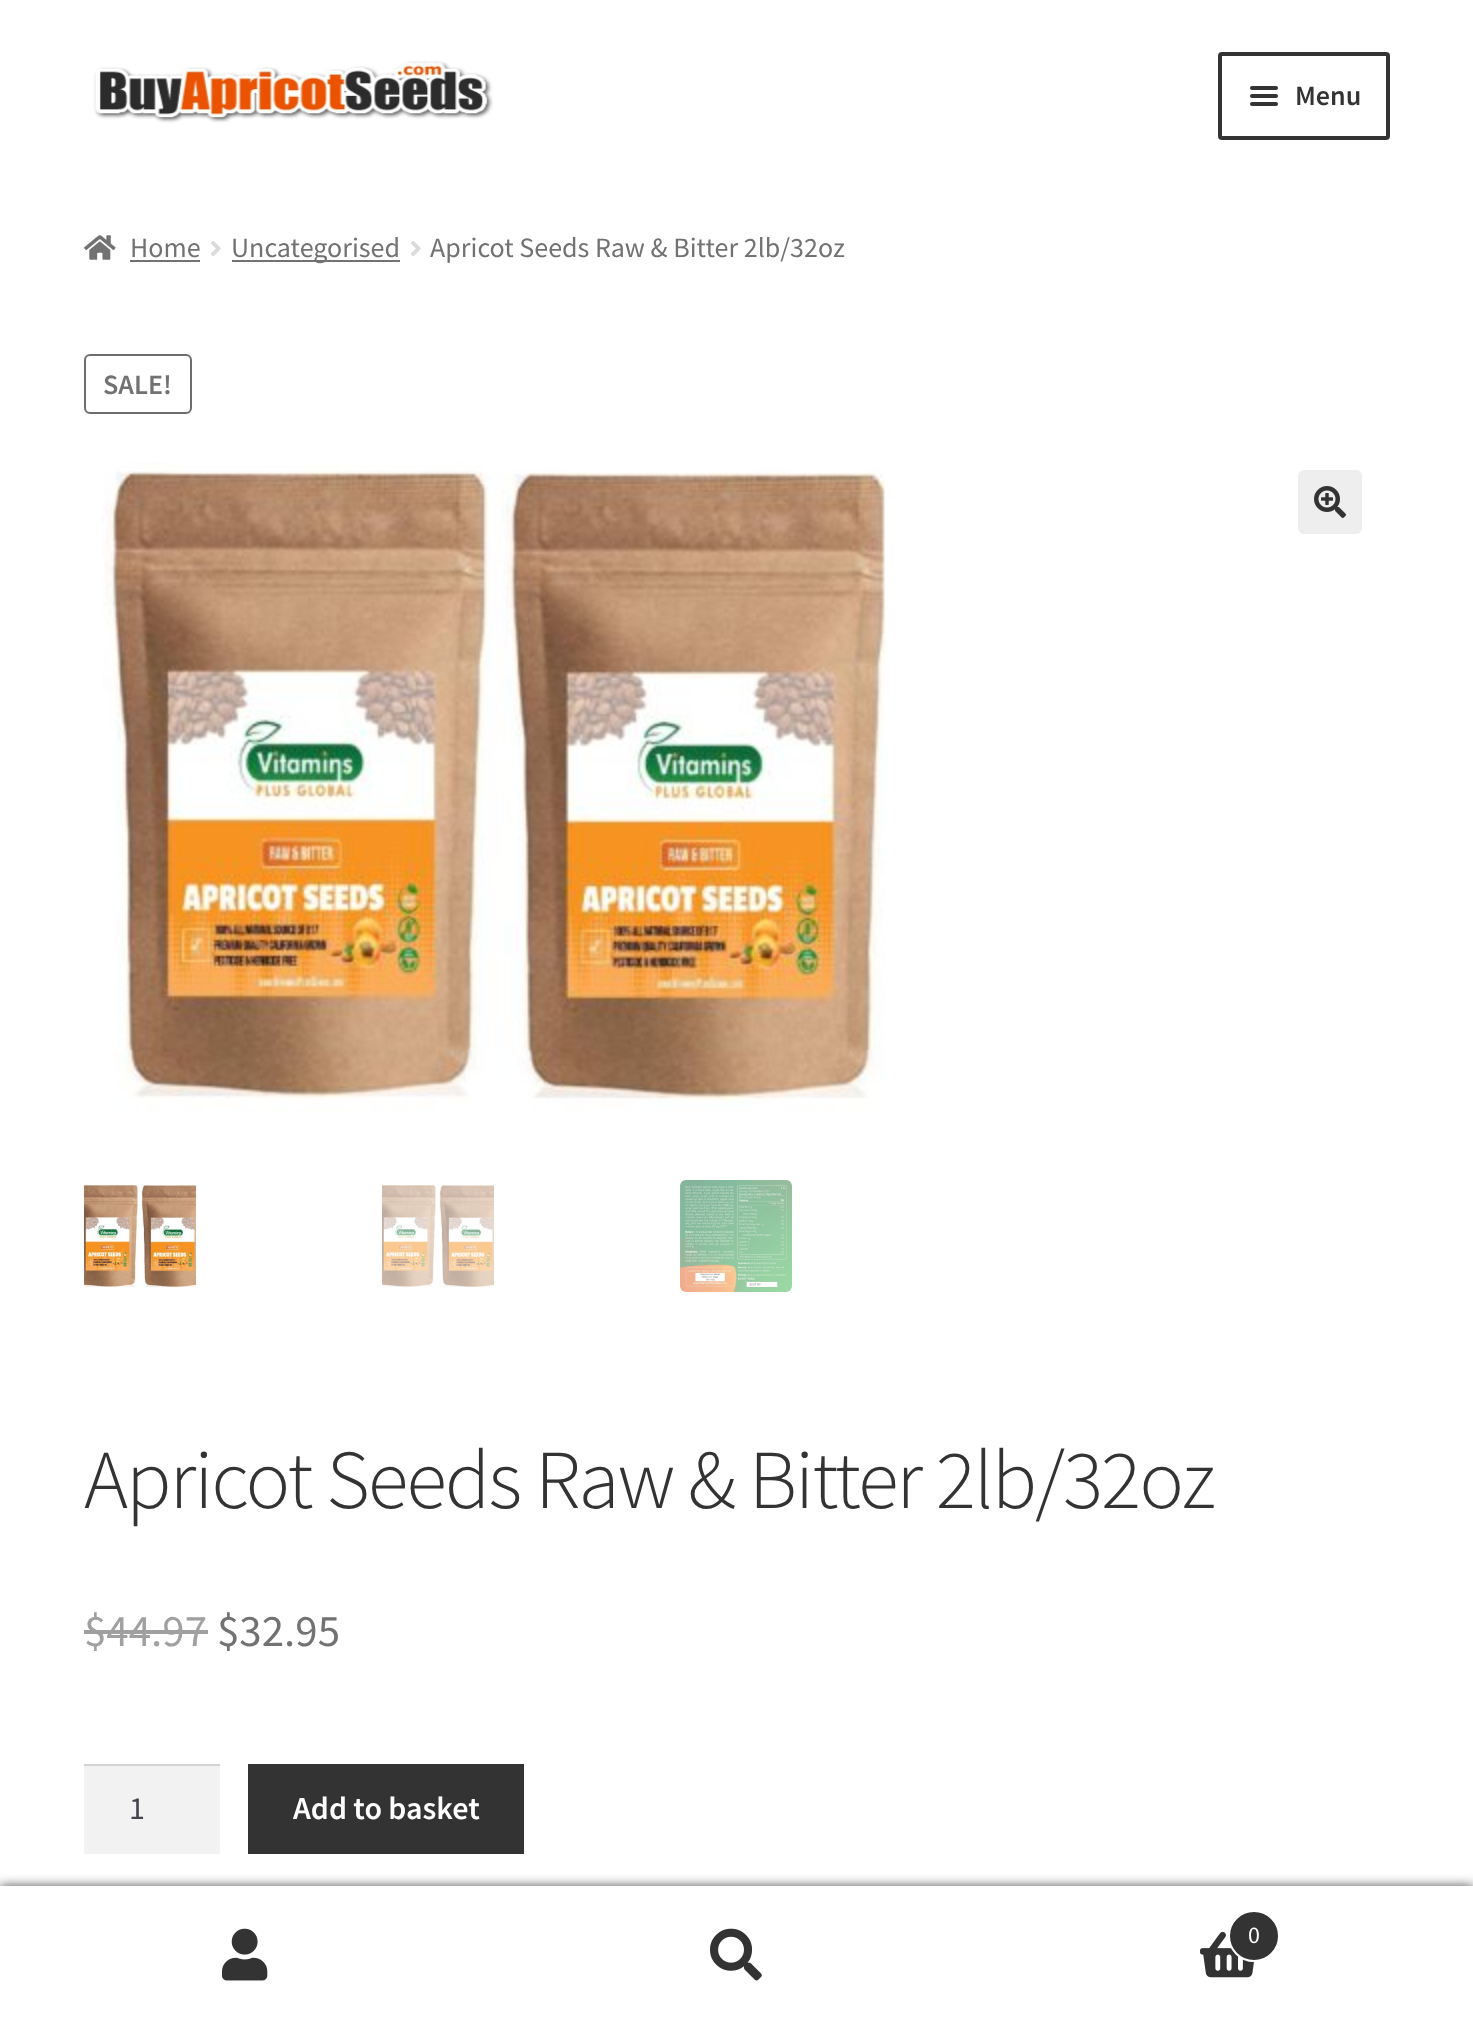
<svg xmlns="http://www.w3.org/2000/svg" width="1473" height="2024">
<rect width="100%" height="100%" fill="#fff"/>
<image x="93" y="60" width="400" height="63" href="media/1.png"/>
<rect x="1220" y="54" width="168" height="84" rx="2" fill="none" stroke="#333" stroke-width="4"/>
<rect x="1250" y="86" width="28" height="4" rx="2" fill="#333"/>
<rect x="1250" y="94" width="28" height="4" rx="2" fill="#333"/>
<text x="1295" y="105" style="font-family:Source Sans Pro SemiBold;font-size:28px;font-weight:600;fill:#333">Menu</text>
<rect x="1250" y="102" width="28" height="4" rx="2" fill="#333"/>
<image x="84" y="235" width="32" height="25" href="media/2.png"/>
<text x="130" y="257" style="font-family:Source Sans Pro;font-size:28px;fill:#727272">Home</text>
<rect x="130" y="260" width="70" height="2" fill="#727272"/>
<image x="211" y="241" width="10" height="16" href="media/3.png"/>
<rect x="232" y="260" width="168" height="2" fill="#727272"/>
<text x="231" y="257" style="font-family:Source Sans Pro;font-size:28px;fill:#727272">Uncategorised</text>
<image x="411" y="241" width="10" height="16" href="media/3.png"/>
<text x="430" y="257" style="font-family:Source Sans Pro;font-size:28px;fill:#727272">Apricot Seeds Raw &amp; Bitter 2lb/32oz</text>
<rect x="85" y="355" width="106" height="58" rx="5" fill="none" stroke="#6d6d6d" stroke-width="2"/>
<text x="103" y="394" style="font-family:Source Sans Pro SemiBold;font-size:28px;font-weight:600;fill:#727272">SALE!</text>
<image x="102" y="462" width="784" height="651" href="media/4.png"/>
<rect x="1298" y="470" width="64" height="64" rx="6" fill="#eee"/>
<image x="1314" y="486" width="32" height="32" href="media/5.png"/>
<image x="84" y="1184" width="112" height="104" href="media/6.png"/>
<image x="382" y="1184" width="112" height="104" href="media/7.png"/>
<image x="680" y="1180" width="112" height="112" href="media/8.png"/>
<text x="84" y="1508" style="font-family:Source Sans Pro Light;font-size:83.75px;font-weight:300;letter-spacing:-2px;fill:#333">Apricot Seeds Raw &amp; Bitter 2lb/32oz</text>
<text x="84" y="1646" style="font-family:Source Sans Pro;font-size:45px;fill:#a0a0a0">$44.97</text>
<rect x="84" y="1630" width="124" height="4" fill="#a0a0a0"/>
<text x="217" y="1646" style="font-family:Source Sans Pro;font-size:45px;fill:#727272">$32.95</text>
<rect x="84" y="1766" width="136" height="88" fill="#f2f2f2"/>
<rect x="84" y="1764" width="136" height="2" fill="#d4d4d4"/>
<text x="129" y="1819" style="font-family:Source Sans Pro;font-size:32px;fill:#43454b">1</text>
<rect x="248" y="1764" width="276" height="90" fill="#333"/>
<text x="293" y="1819" style="font-family:Source Sans Pro SemiBold;font-size:32px;font-weight:600;fill:#fff">Add to basket</text>
<rect y="1886" width="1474" height="138" fill="#000000b3" filter="blur(6px)"/>
<rect y="1886" width="1473" height="2" fill="#fff"/>
<rect y="1888" width="1473" height="136" fill="#fff"/>
<image x="222" y="1928" width="46" height="53" href="media/9.png"/>
<image x="710" y="1928" width="52" height="53" href="media/10.png"/>
<image x="1200" y="1931" width="55" height="47" href="media/11.png"/>
<circle cx="1254" cy="1936" r="25" fill="#333" stroke="#fff" stroke-width="2"/>
<text x="1248" y="1943" style="font-family:Source Sans Pro;font-size:24px;fill:#fff">0</text>
</svg>
